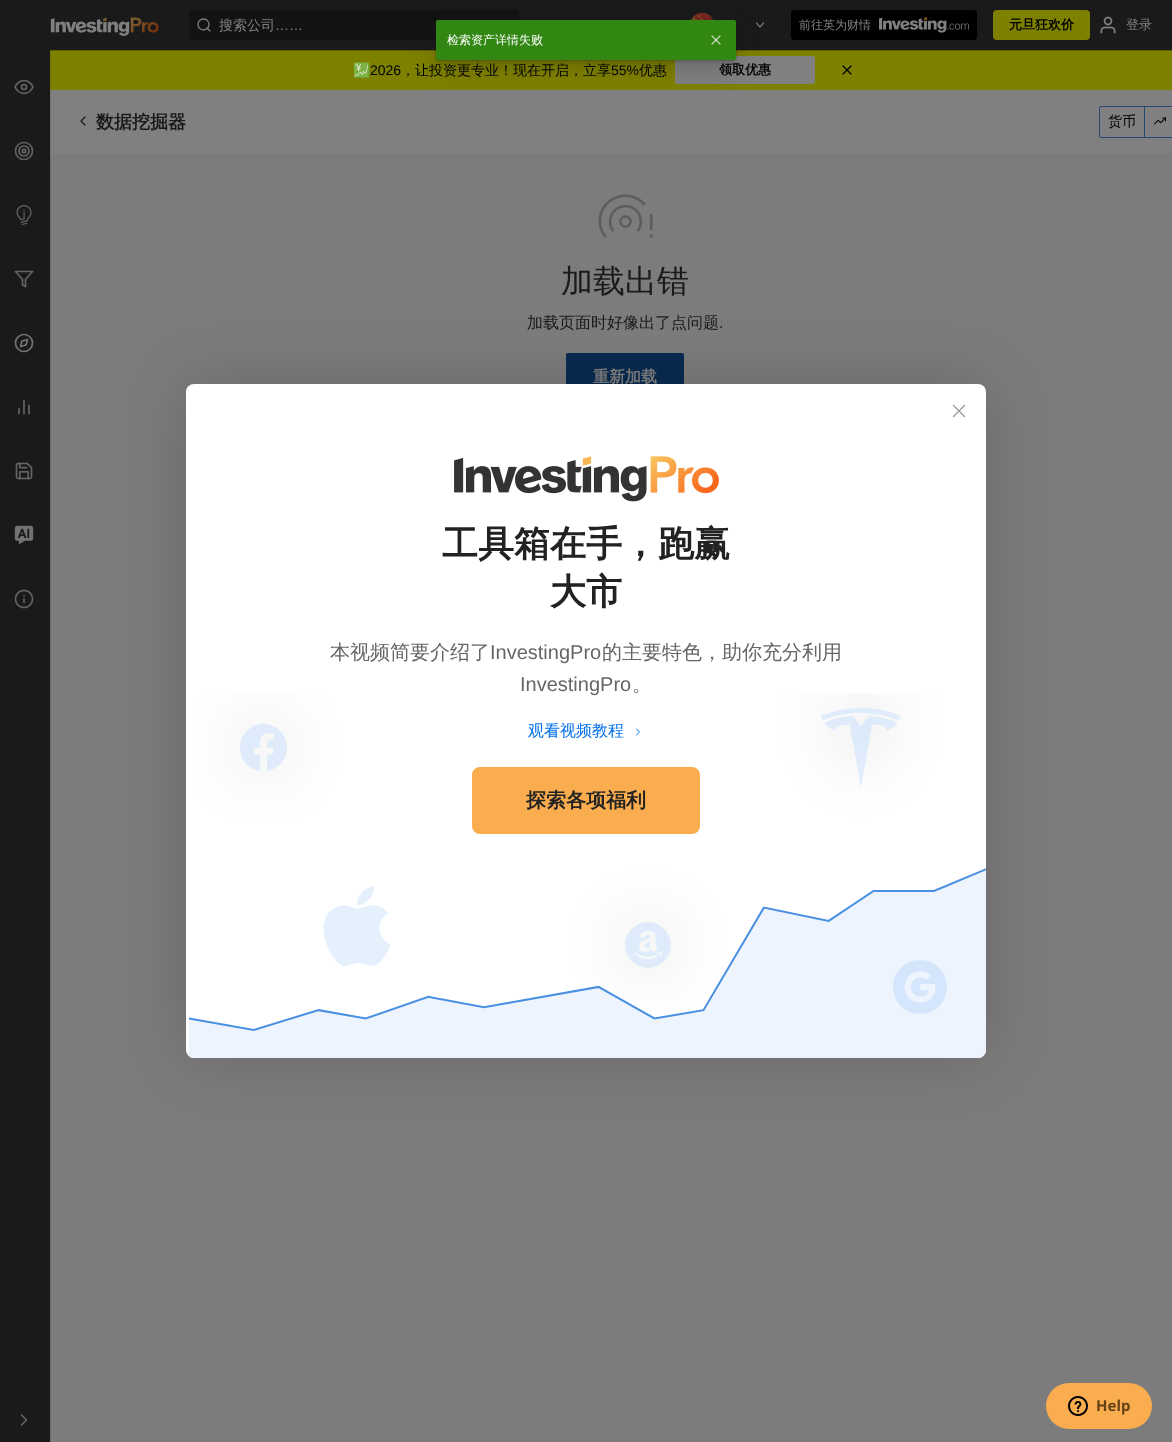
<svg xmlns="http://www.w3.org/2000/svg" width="1172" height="1442">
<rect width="100%" height="100%" fill="#7c7c7c"/>
<rect x="50" y="50" width="1122" height="40" fill="#7e8000"/>
<rect x="50" y="90" width="1122" height="64" fill="#808080"/>
<rect y="51" width="50" height="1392" fill="#0d0d0d33" filter="blur(0.5px)"/>
<rect x="-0.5" y="49.5" width="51" height="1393" fill="none" stroke="#0d0d0d1a"/>
<rect y="50" width="50" height="1392" fill="#1a1a1a"/>
<rect y="1" width="1172" height="50" fill="#0d0d0d33" filter="blur(0.5px)"/>
<rect x="-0.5" y="-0.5" width="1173" height="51" fill="none" stroke="#0d0d0d1a"/>
<rect width="1172" height="50" fill="#1a1a1a"/>
<image x="50" y="17" width="109" height="19" href="media/1.png"/>
<rect x="189" y="10" width="330" height="30" rx="2" fill="#131313"/>
<circle cx="203.5" cy="24.5" r="5.5" fill="none" stroke="#808080" stroke-width="1.3"/>
<path d="M210 31l-3-3" fill="none" stroke="#808080" stroke-width="1.3" stroke-linecap="round" stroke-linejoin="round"/>
<text x="219" y="30" style="font-family:WenQuanYi Zen Hei;font-size:14px;font-weight:500;fill:#808080">搜索公司</text>
<text x="275" y="30" style="font-family:Liberation Sans;font-size:14px;fill:#808080">……</text>
<image x="691" y="13" width="22" height="7" href="media/2.png"/>
<path d="M756.5 23l3.5 4l3.5-4" fill="none" stroke="#747474" stroke-width="1.2" stroke-linecap="round" stroke-linejoin="round"/>
<rect x="791" y="10" width="186" height="30" rx="4" fill="#000"/>
<text x="799" y="29" style="font-family:WenQuanYi Zen Hei;font-size:12px;font-weight:500;fill:#808080">前往英为财情</text>
<image x="879" y="17" width="90" height="16" href="media/3.png"/>
<rect x="993" y="10" width="97" height="30" rx="4" fill="#7e8000"/>
<text x="1009" y="29" style="font-family:WenQuanYi Zen Hei;font-size:13px;font-weight:bold;fill:#000">元旦狂欢价</text>
<image x="1100" y="16" width="16" height="18" href="media/4.png"/>
<text x="1126" y="29" style="font-family:WenQuanYi Zen Hei;font-size:13px;font-weight:500;fill:#808080">登录</text>
<path d="M15 87c4-8.5 14-8.5 18 0c-4 8.5-14 8.5-18 0z" fill="none" stroke="#636363" stroke-width="1.7" stroke-linecap="round" stroke-linejoin="round"/>
<circle cx="24" cy="87" r="2.5" fill="none" stroke="#636363" stroke-width="1.7"/>
<circle cx="24" cy="151" r="8.5" fill="none" stroke="#636363" stroke-width="1.7"/>
<circle cx="24" cy="151" r="5" fill="none" stroke="#636363" stroke-width="1.7"/>
<circle cx="24" cy="151" r="1.7" fill="none" stroke="#636363" stroke-width="1.7"/>
<image x="16" y="205" width="16" height="20" href="media/5.png"/>
<path d="M32.5 271.5h-17l7 8v5.5l3 1.5v-7z" fill="none" stroke="#636363" stroke-width="1.7" stroke-linecap="round" stroke-linejoin="round"/>
<circle cx="24" cy="343" r="8.5" fill="none" stroke="#747474" stroke-width="1.7"/>
<path d="M27.5 339.5l-1.5 5.5l-5.5 1.5l1.5-5.5z" fill="none" stroke="#747474" stroke-width="1.7" stroke-linecap="round" stroke-linejoin="round"/>
<image x="18" y="399" width="12" height="16" href="media/6.png"/>
<image x="15" y="462" width="18" height="18" href="media/7.png"/>
<image x="14" y="525" width="20" height="20" href="media/8.png"/>
<image x="14" y="589" width="20" height="20" href="media/9.png"/>
<path d="M21.5 1425l5-5l-5-5" fill="none" stroke="#636363" stroke-width="1.7" stroke-linecap="round" stroke-linejoin="round"/>
<text x="353" y="75" style="font-family:Noto Color Emoji;font-size:14px;fill:#000">💹</text>
<text x="370" y="75" style="font-family:Liberation Sans;font-size:14px;fill:#000">2026</text>
<text x="401" y="75" style="font-family:WenQuanYi Zen Hei;font-size:14px;font-weight:500;fill:#000">，让投资更专业！现在开启，立享</text>
<text x="611" y="75" style="font-family:Liberation Sans;font-size:14px;fill:#000">55%</text>
<text x="639" y="75" style="font-family:WenQuanYi Zen Hei;font-size:14px;font-weight:500;fill:#000">优惠</text>
<rect x="675" y="56" width="140" height="28" rx="3" fill="#808080"/>
<text x="719" y="74" style="font-family:WenQuanYi Zen Hei;font-size:13px;font-weight:bold;fill:#000">领取优惠</text>
<image x="842" y="65" width="10" height="10" href="media/10.png"/>
<path d="M85 125l-4-4l4-4" fill="none" stroke="#1a1a1a" stroke-width="1.3" stroke-linecap="round" stroke-linejoin="round"/>
<text x="96" y="128" style="font-family:WenQuanYi Zen Hei;font-size:18px;font-weight:bold;fill:#1a1a1a">数据挖掘器</text>
<rect x="1099.5" y="106.5" width="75" height="31" rx="1.5" fill="none" stroke="#254871"/>
<text x="1108" y="126" style="font-family:WenQuanYi Zen Hei;font-size:14px;font-weight:500;fill:#000">货币</text>
<rect x="1144" y="107" width="1" height="30" fill="#254871"/>
<image x="1154" y="117" width="12" height="8" href="media/11.png"/>
<image x="598" y="194" width="55" height="44" href="media/12.png"/>
<text x="561" y="292" style="font-family:WenQuanYi Zen Hei;font-size:32px;font-weight:500;fill:#1a1a1a">加载出错</text>
<text x="527" y="328" style="font-family:WenQuanYi Zen Hei;font-size:16px;font-weight:500;fill:#1a1a1a">加载页面时好像出了点问题</text>
<text x="719" y="328" style="font-family:Liberation Sans;font-size:16px;fill:#1a1a1a">.</text>
<rect x="566.5" y="353.5" width="117" height="47" rx="1.5" fill="#092b50" stroke="#092b50"/>
<text x="593" y="382" style="font-family:WenQuanYi Zen Hei;font-size:16px;font-weight:bold;fill:#808080">重新加载</text>
<rect x="436" y="28" width="300" height="40" rx="2" fill="#1a1a1a33" filter="blur(12px)"/>
<rect x="436" y="22" width="300" height="40" rx="2" fill="#1a1a1a33" filter="blur(2px)"/>
<rect x="435.5" y="19.5" width="301" height="41" rx="2.5" fill="none" stroke="#1a1a1a1a"/>
<rect x="436" y="20" width="300" height="40" rx="2" fill="#318712"/>
<text x="447" y="44" style="font-family:WenQuanYi Zen Hei;font-size:12px;font-weight:500;fill:#fff">检索资产详情失败</text>
<image x="711" y="35" width="10" height="10" href="media/13.png"/>
<rect x="186" y="384" width="800" height="674" rx="8" fill="#00000029" filter="blur(32px)"/>
<rect x="186" y="384" width="800" height="674" rx="8" fill="#fff"/>
<path d="M964.5 405.5l-11 11m0-11l11 11" fill="none" stroke="#9b9b9b" stroke-width="1.4" stroke-linecap="round" stroke-linejoin="round"/>
<image x="454" y="456" width="265" height="46" href="media/14.png"/>
<text x="442" y="556" style="font-family:WenQuanYi Zen Hei;font-size:36px;font-weight:bold;fill:#222">工具箱在手，跑赢</text>
<text x="550" y="604" style="font-family:WenQuanYi Zen Hei;font-size:36px;font-weight:bold;fill:#222">大市</text>
<text x="330" y="659" style="font-family:WenQuanYi Zen Hei;font-size:20px;font-weight:500;fill:#666">本视频简要介绍了</text>
<text x="490" y="659" style="font-family:Liberation Sans;font-size:20px;fill:#666">InvestingPro</text>
<text x="602" y="659" style="font-family:WenQuanYi Zen Hei;font-size:20px;font-weight:500;fill:#666">的主要特色，助你充分利用</text>
<image x="188" y="693" width="798" height="365" href="media/15.png"/>
<text x="520" y="691" style="font-family:Liberation Sans;font-size:20px;fill:#666">InvestingPro</text>
<text x="632" y="691" style="font-family:WenQuanYi Zen Hei;font-size:20px;font-weight:500;fill:#666">。</text>
<text x="528" y="736" style="font-family:WenQuanYi Zen Hei;font-size:16px;font-weight:500;fill:#0070eb">观看视频教程</text>
<path d="M636.5 735l3-3l-3-3" fill="none" stroke="#0070eb" stroke-linecap="round" stroke-linejoin="round"/>
<rect x="472" y="767" width="228" height="67" rx="8" fill="#f9ad4e"/>
<text x="526" y="807" style="font-family:WenQuanYi Zen Hei;font-size:20px;font-weight:bold;fill:#222">探索各项福利</text>
<rect x="1046" y="1383" width="106" height="46" rx="23" fill="#f9ad4e"/>
<image x="1068" y="1396" width="20" height="20" href="media/16.png"/>
<text x="1096" y="1411" style="font-family:Noto Sans;font-size:15px;font-weight:bold;fill:#664317">Help</text>
</svg>
